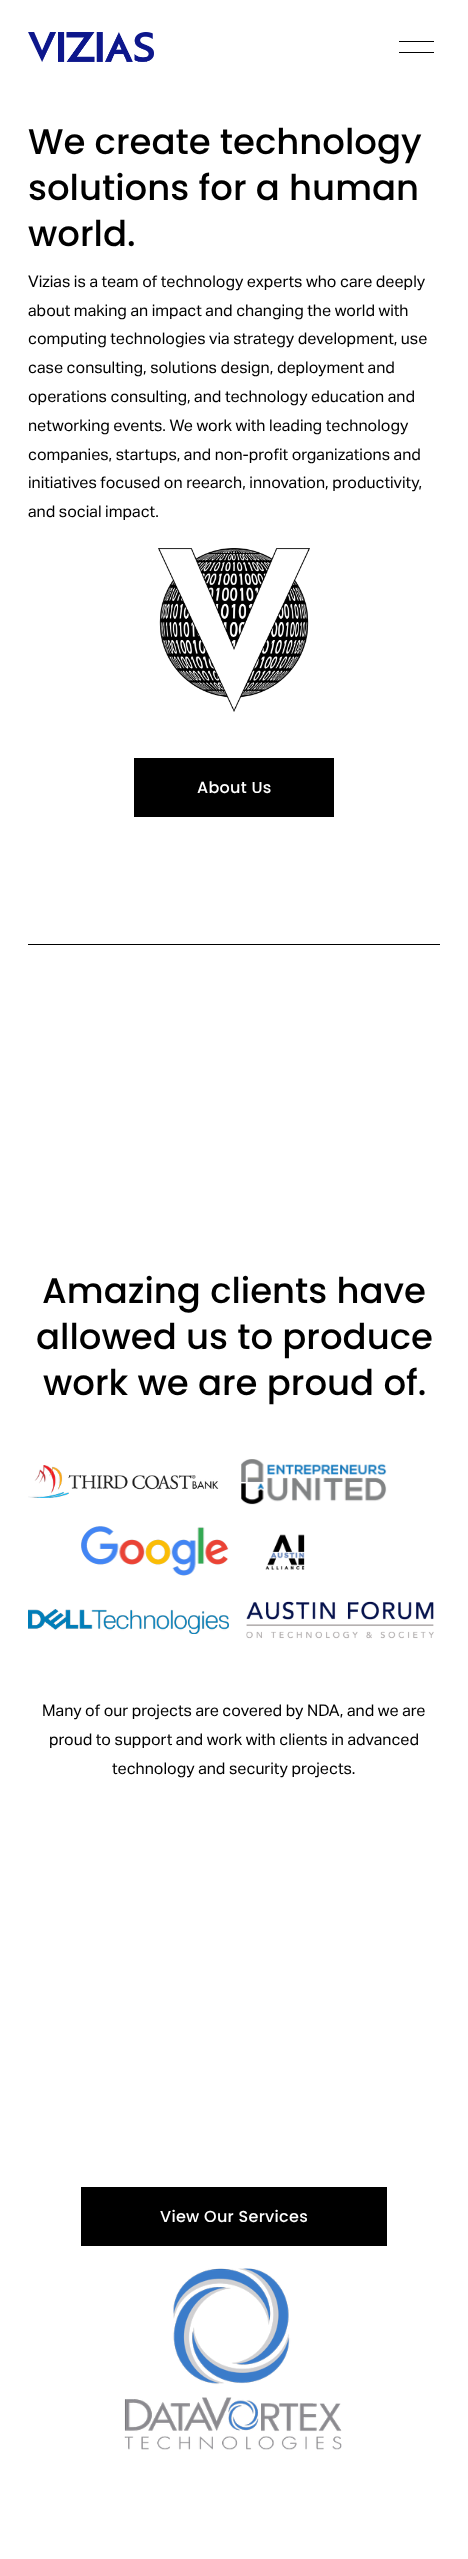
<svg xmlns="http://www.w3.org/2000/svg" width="468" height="2559">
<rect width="100%" height="100%" fill="#fff"/>
<image x="28" y="32" width="126" height="30" href="media/1.png"/>
<rect x="399" y="41" width="35" height="1" fill="#000"/>
<rect x="399" y="52" width="35" height="1" fill="#000"/>
<text x="28" y="154" style="font-family:Poppins;font-size:35.5px;font-weight:500;fill:#000">We create technology</text>
<text x="28" y="200" style="font-family:Poppins;font-size:35.5px;font-weight:500;fill:#000">solutions for a human</text>
<text x="28" y="246" style="font-family:Poppins;font-size:35.5px;font-weight:500;fill:#000">world.</text>
<text x="28" y="287" style="font-family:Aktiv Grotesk;font-size:16px;fill:#000">Vizias is a team of technology experts who care deeply</text>
<text x="28" y="316" style="font-family:Aktiv Grotesk;font-size:16px;fill:#000">about making an impact and changing the world with</text>
<text x="28" y="344" style="font-family:Aktiv Grotesk;font-size:16px;fill:#000">computing technologies via strategy development, use</text>
<text x="28" y="373" style="font-family:Aktiv Grotesk;font-size:16px;fill:#000">case consulting, solutions design, deployment and</text>
<text x="28" y="402" style="font-family:Aktiv Grotesk;font-size:16px;fill:#000">operations consulting, and technology education and</text>
<text x="28" y="431" style="font-family:Aktiv Grotesk;font-size:16px;fill:#000">networking events. We work with leading technology</text>
<text x="28" y="460" style="font-family:Aktiv Grotesk;font-size:16px;fill:#000">companies, startups, and non-profit organizations and</text>
<text x="28" y="488" style="font-family:Aktiv Grotesk;font-size:16px;fill:#000">initiatives focused on reearch, innovation, productivity,</text>
<text x="28" y="517" style="font-family:Aktiv Grotesk;font-size:16px;fill:#000">and social impact.</text>
<image x="158" y="548" width="152" height="164" href="media/2.png"/>
<rect x="134" y="758" width="200" height="59" fill="#000"/>
<text x="197" y="793" style="font-family:Poppins;font-size:16px;font-weight:500;letter-spacing:0.3px;fill:#fff">About Us</text>
<rect x="28" y="944" width="412" height="1" fill="#000"/>
<text x="42" y="1303" style="font-family:Poppins;font-size:35.5px;font-weight:500;fill:#000">Amazing clients have</text>
<text x="36" y="1349" style="font-family:Poppins;font-size:35.5px;font-weight:500;fill:#000">allowed us to produce</text>
<text x="43" y="1395" style="font-family:Poppins;font-size:35.5px;font-weight:500;fill:#000">work we are proud of.</text>
<image x="28" y="1465" width="191" height="33" href="media/3.png"/>
<image x="241" y="1459" width="146" height="46" href="media/4.png"/>
<image x="81" y="1526" width="148" height="50" href="media/5.png"/>
<image x="265" y="1534" width="40" height="36" href="media/6.png"/>
<image x="28" y="1609" width="201" height="25" href="media/7.png"/>
<image x="246" y="1601" width="188" height="38" href="media/8.png"/>
<text x="42" y="1716" style="font-family:Aktiv Grotesk;font-size:16px;fill:#000">Many of our projects are covered by NDA, and we are</text>
<text x="49" y="1745" style="font-family:Aktiv Grotesk;font-size:16px;fill:#000">proud to support and work with clients in advanced</text>
<text x="112" y="1774" style="font-family:Aktiv Grotesk;font-size:16px;fill:#000">technology and security projects.</text>
<rect x="81" y="2187" width="306" height="59" fill="#000"/>
<text x="160" y="2222" style="font-family:Poppins;font-size:16px;font-weight:500;letter-spacing:0.3px;fill:#fff">View Our Services</text>
<image x="124" y="2268" width="218" height="182" href="media/9.png"/>
</svg>
